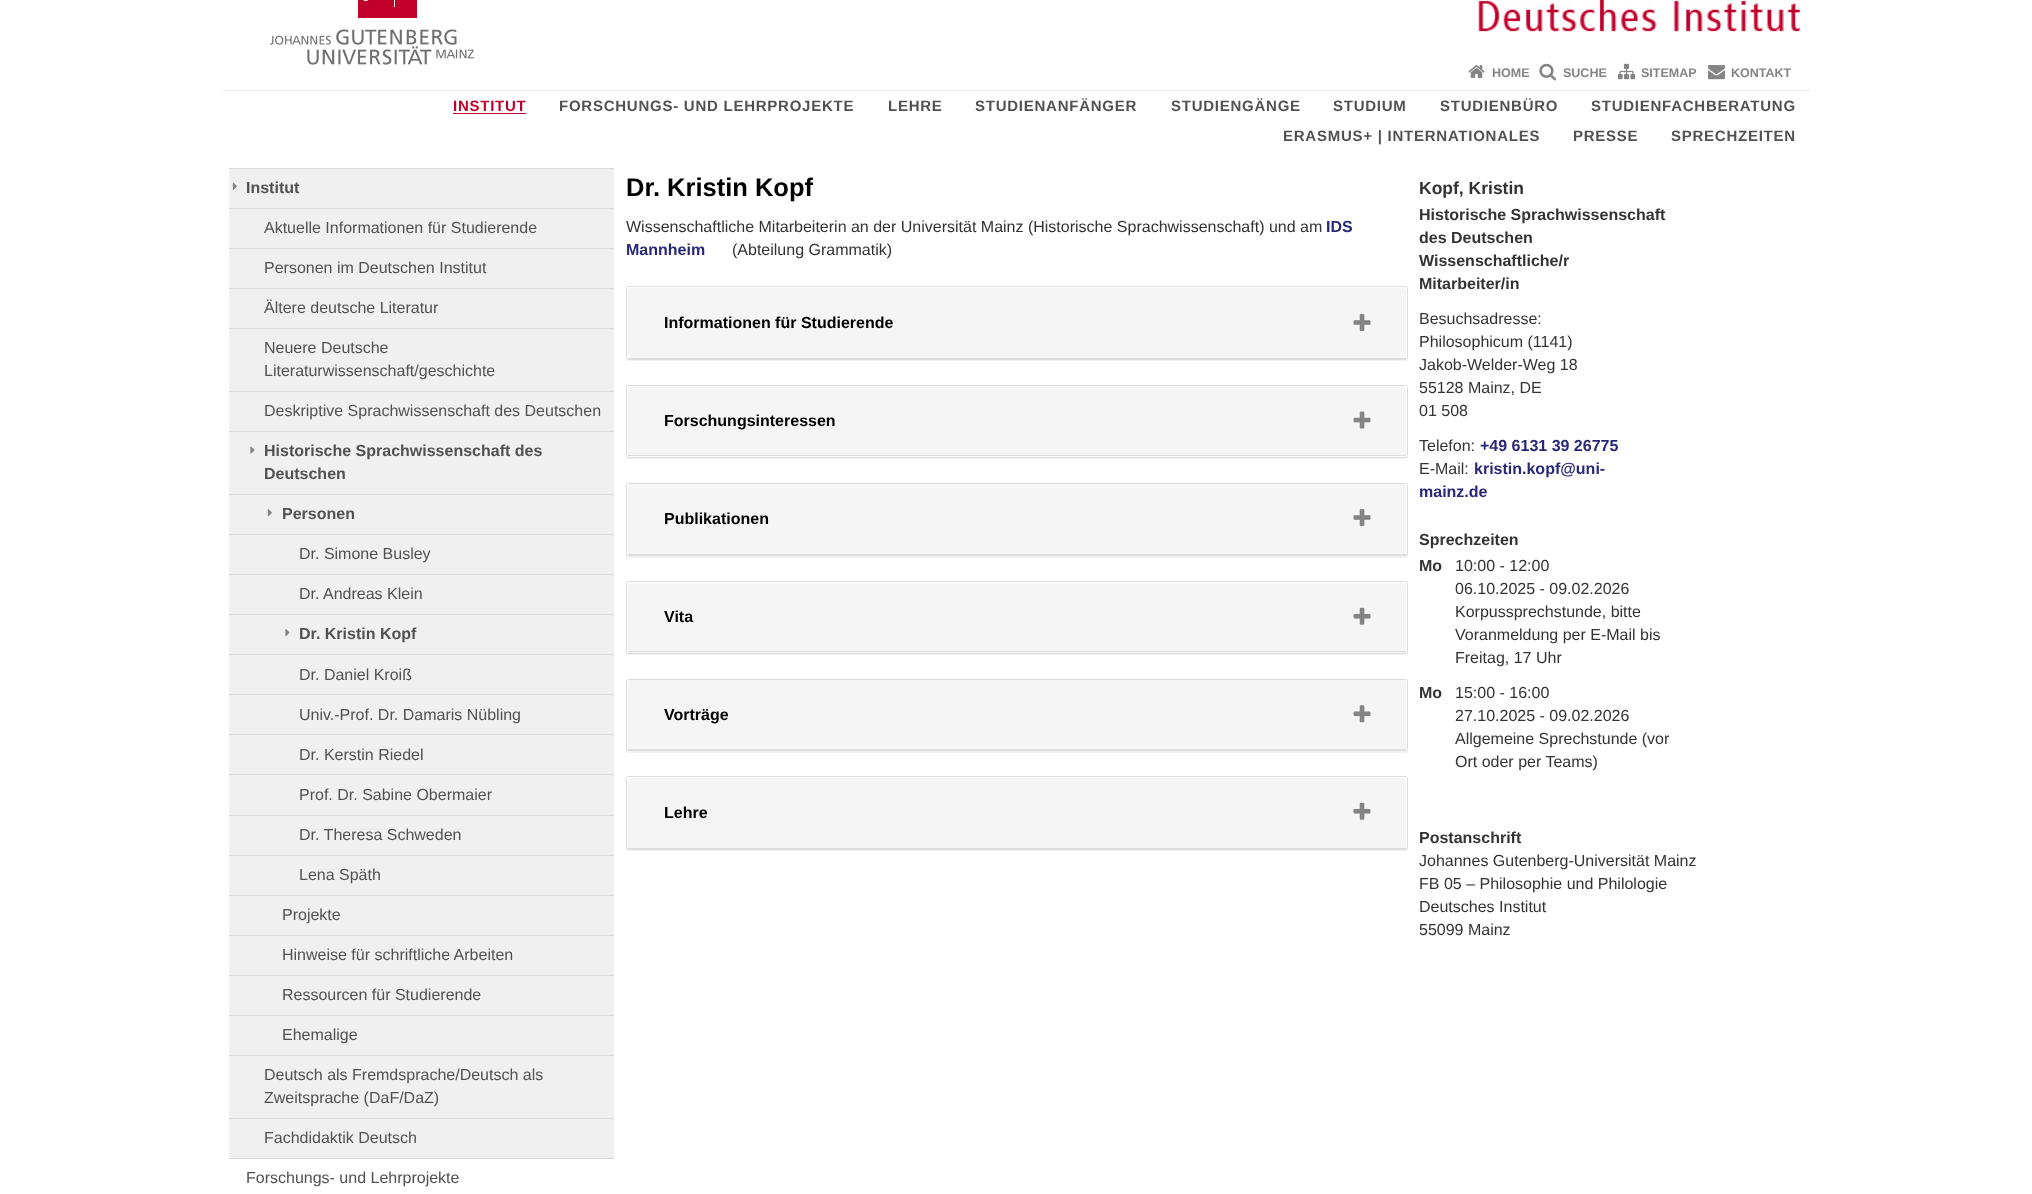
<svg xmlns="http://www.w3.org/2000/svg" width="2032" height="1194">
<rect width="100%" height="100%" fill="#fff"/>
<image x="270" y="0" width="204" height="65" href="media/1.png"/>
<image x="1478" y="0" width="323" height="32" href="media/2.png"/>
<image x="1468" y="65" width="17" height="13" href="media/3.png"/>
<text x="1492" y="77" style="font-family:Liberation Sans;font-size:12.5px;font-weight:bold;fill:#848484">HOME</text>
<image x="1539" y="63" width="18" height="18" href="media/4.png"/>
<text x="1563" y="77" style="font-family:Liberation Sans;font-size:12.5px;font-weight:bold;fill:#848484">SUCHE</text>
<image x="1618" y="63" width="17" height="17" href="media/5.png"/>
<text x="1641" y="77" style="font-family:Liberation Sans;font-size:12.5px;font-weight:bold;fill:#848484">SITEMAP</text>
<image x="1708" y="65" width="17" height="15" href="media/6.png"/>
<text x="1731" y="77" style="font-family:Liberation Sans;font-size:12.5px;font-weight:bold;fill:#848484">KONTAKT</text>
<rect x="223" y="90" width="1587" height="1" fill="#ebebeb"/>
<text x="453" y="111" style="font-family:Liberation Sans;font-size:15px;font-weight:bold;letter-spacing:0.75px;fill:#c1002a">INSTITUT</text>
<rect x="453" y="113" width="73" height="1" fill="#c1002a"/>
<text x="559" y="111" style="font-family:Liberation Sans;font-size:15px;font-weight:bold;letter-spacing:0.75px;fill:#515151">FORSCHUNGS- UND LEHRPROJEKTE</text>
<text x="888" y="111" style="font-family:Liberation Sans;font-size:15px;font-weight:bold;letter-spacing:0.75px;fill:#515151">LEHRE</text>
<text x="975" y="111" style="font-family:Liberation Sans;font-size:15px;font-weight:bold;letter-spacing:0.75px;fill:#515151">STUDIENANFÄNGER</text>
<text x="1171" y="111" style="font-family:Liberation Sans;font-size:15px;font-weight:bold;letter-spacing:0.75px;fill:#515151">STUDIENGÄNGE</text>
<text x="1333" y="111" style="font-family:Liberation Sans;font-size:15px;font-weight:bold;letter-spacing:0.75px;fill:#515151">STUDIUM</text>
<text x="1440" y="111" style="font-family:Liberation Sans;font-size:15px;font-weight:bold;letter-spacing:0.75px;fill:#515151">STUDIENBÜRO</text>
<text x="1591" y="111" style="font-family:Liberation Sans;font-size:15px;font-weight:bold;letter-spacing:0.75px;fill:#515151">STUDIENFACHBERATUNG</text>
<text x="1283" y="141" style="font-family:Liberation Sans;font-size:15px;font-weight:bold;letter-spacing:0.75px;fill:#515151">ERASMUS+ | INTERNATIONALES</text>
<text x="1573" y="141" style="font-family:Liberation Sans;font-size:15px;font-weight:bold;letter-spacing:0.75px;fill:#515151">PRESSE</text>
<text x="1671" y="141" style="font-family:Liberation Sans;font-size:15px;font-weight:bold;letter-spacing:0.75px;fill:#515151">SPRECHZEITEN</text>
<rect x="229" y="169" width="385" height="989" fill="#f0f0f0"/>
<rect x="229" y="168" width="385" height="1" fill="#dadada"/>
<image x="232" y="182" width="5" height="8" href="media/7.png"/>
<text x="246" y="193" style="font-family:Liberation Sans;font-size:16px;font-weight:bold;fill:#515151">Institut</text>
<rect x="229" y="208" width="385" height="1" fill="#dadada"/>
<text x="264" y="233" style="font-family:Liberation Sans;font-size:16px;fill:#515151">Aktuelle Informationen für Studierende</text>
<rect x="229" y="248" width="385" height="1" fill="#dadada"/>
<text x="264" y="273" style="font-family:Liberation Sans;font-size:16px;fill:#515151">Personen im Deutschen Institut</text>
<rect x="229" y="288" width="385" height="1" fill="#dadada"/>
<text x="264" y="313" style="font-family:Liberation Sans;font-size:16px;fill:#515151">Ältere deutsche Literatur</text>
<rect x="229" y="328" width="385" height="1" fill="#dadada"/>
<text x="264" y="353" style="font-family:Liberation Sans;font-size:16px;fill:#515151">Neuere Deutsche</text>
<text x="264" y="376" style="font-family:Liberation Sans;font-size:16px;fill:#515151">Literaturwissenschaft/geschichte</text>
<rect x="229" y="391" width="385" height="1" fill="#dadada"/>
<text x="264" y="416" style="font-family:Liberation Sans;font-size:16px;fill:#515151">Deskriptive Sprachwissenschaft des Deutschen</text>
<rect x="229" y="431" width="385" height="1" fill="#dadada"/>
<image x="250" y="446" width="5" height="8" href="media/8.png"/>
<text x="264" y="456" style="font-family:Liberation Sans;font-size:16px;font-weight:bold;fill:#515151">Historische Sprachwissenschaft des</text>
<text x="264" y="479" style="font-family:Liberation Sans;font-size:16px;font-weight:bold;fill:#515151">Deutschen</text>
<rect x="229" y="494" width="385" height="1" fill="#dadada"/>
<image x="267" y="509" width="5" height="8" href="media/9.png"/>
<text x="282" y="519" style="font-family:Liberation Sans;font-size:16px;font-weight:bold;fill:#515151">Personen</text>
<rect x="229" y="534" width="385" height="1" fill="#dadada"/>
<text x="299" y="559" style="font-family:Liberation Sans;font-size:16px;fill:#515151">Dr. Simone Busley</text>
<rect x="229" y="574" width="385" height="1" fill="#dadada"/>
<text x="299" y="599" style="font-family:Liberation Sans;font-size:16px;fill:#515151">Dr. Andreas Klein</text>
<rect x="229" y="614" width="385" height="1" fill="#dadada"/>
<image x="285" y="629" width="5" height="8" href="media/10.png"/>
<text x="299" y="639" style="font-family:Liberation Sans;font-size:16px;font-weight:bold;fill:#515151">Dr. Kristin Kopf</text>
<rect x="229" y="654" width="385" height="1" fill="#dadada"/>
<text x="299" y="680" style="font-family:Liberation Sans;font-size:16px;fill:#515151">Dr. Daniel Kroiß</text>
<rect x="229" y="694" width="385" height="1" fill="#dadada"/>
<text x="299" y="720" style="font-family:Liberation Sans;font-size:16px;fill:#515151">Univ.-Prof. Dr. Damaris Nübling</text>
<rect x="229" y="734" width="385" height="1" fill="#dadada"/>
<text x="299" y="760" style="font-family:Liberation Sans;font-size:16px;fill:#515151">Dr. Kerstin Riedel</text>
<rect x="229" y="774" width="385" height="1" fill="#dadada"/>
<text x="299" y="800" style="font-family:Liberation Sans;font-size:16px;fill:#515151">Prof. Dr. Sabine Obermaier</text>
<rect x="229" y="815" width="385" height="1" fill="#dadada"/>
<text x="299" y="840" style="font-family:Liberation Sans;font-size:16px;fill:#515151">Dr. Theresa Schweden</text>
<rect x="229" y="855" width="385" height="1" fill="#dadada"/>
<text x="299" y="880" style="font-family:Liberation Sans;font-size:16px;fill:#515151">Lena Späth</text>
<rect x="229" y="895" width="385" height="1" fill="#dadada"/>
<text x="282" y="920" style="font-family:Liberation Sans;font-size:16px;fill:#515151">Projekte</text>
<rect x="229" y="935" width="385" height="1" fill="#dadada"/>
<text x="282" y="960" style="font-family:Liberation Sans;font-size:16px;fill:#515151">Hinweise für schriftliche Arbeiten</text>
<rect x="229" y="975" width="385" height="1" fill="#dadada"/>
<text x="282" y="1000" style="font-family:Liberation Sans;font-size:16px;fill:#515151">Ressourcen für Studierende</text>
<rect x="229" y="1015" width="385" height="1" fill="#dadada"/>
<text x="282" y="1040" style="font-family:Liberation Sans;font-size:16px;fill:#515151">Ehemalige</text>
<rect x="229" y="1055" width="385" height="1" fill="#dadada"/>
<text x="264" y="1080" style="font-family:Liberation Sans;font-size:16px;fill:#515151">Deutsch als Fremdsprache/Deutsch als</text>
<text x="264" y="1103" style="font-family:Liberation Sans;font-size:16px;fill:#515151">Zweitsprache (DaF/DaZ)</text>
<rect x="229" y="1118" width="385" height="1" fill="#dadada"/>
<text x="264" y="1143" style="font-family:Liberation Sans;font-size:16px;fill:#515151">Fachdidaktik Deutsch</text>
<rect x="229" y="1158" width="385" height="1" fill="#dadada"/>
<text x="246" y="1183" style="font-family:Liberation Sans;font-size:16px;fill:#515151">Forschungs- und Lehrprojekte</text>
<text x="626" y="196" style="font-family:Liberation Sans;font-size:25.5px;font-weight:bold;fill:#000">Dr. Kristin Kopf</text>
<text x="626" y="232" style="font-family:Liberation Sans;font-size:16px;fill:#333">Wissenschaftliche Mitarbeiterin an der Universität Mainz (Historische Sprachwissenschaft) und am</text>
<text x="1326" y="232" style="font-family:Liberation Sans;font-size:16px;font-weight:bold;fill:#282879">IDS</text>
<text x="626" y="255" style="font-family:Liberation Sans;font-size:16px;font-weight:bold;fill:#282879">Mannheim</text>
<text x="732" y="255" style="font-family:Liberation Sans;font-size:16px;fill:#333">(Abteilung Grammatik)</text>
<rect x="626" y="288" width="782" height="73" rx="2.5" fill="#0000000d" filter="blur(0.5px)"/>
<rect x="626.5" y="286.5" width="781" height="73" rx="2" fill="#fff" stroke="#ddd"/>
<path d="M632 288h770c2 0 4 2 4 4v67h-778v-67c0-2 2-4 4-4z" fill="#f5f5f5"/>
<rect x="628" y="358" width="778" height="1" fill="#ddd"/>
<image x="1353" y="314" width="18" height="17" href="media/11.png"/>
<text x="664" y="328" style="font-family:Liberation Sans;font-size:16px;font-weight:bold;fill:#000">Informationen für Studierende</text>
<rect x="626" y="386" width="782" height="73" rx="2.5" fill="#0000000d" filter="blur(0.5px)"/>
<rect x="626.5" y="385.5" width="781" height="72" rx="2" fill="#fff" stroke="#ddd"/>
<path d="M632 386h770c2 0 4 2 4 4v66h-778v-66c0-2 2-4 4-4z" fill="#f5f5f5"/>
<rect x="628" y="455" width="778" height="1" fill="#ddd"/>
<image x="1353" y="411" width="18" height="18" href="media/12.png"/>
<text x="664" y="426" style="font-family:Liberation Sans;font-size:16px;font-weight:bold;fill:#000">Forschungsinteressen</text>
<rect x="626" y="484" width="782" height="74" rx="2.5" fill="#0000000d" filter="blur(0.5px)"/>
<rect x="626.5" y="483.5" width="781" height="72" rx="2" fill="#fff" stroke="#ddd"/>
<path d="M632 484h770c2 0 4 2 4 4v67h-778v-67c0-2 2-4 4-4z" fill="#f5f5f5"/>
<rect x="628" y="554" width="778" height="1" fill="#ddd"/>
<image x="1353" y="509" width="18" height="17" href="media/11.png"/>
<text x="664" y="524" style="font-family:Liberation Sans;font-size:16px;font-weight:bold;fill:#000">Publikationen</text>
<rect x="626" y="583" width="782" height="72" rx="2.5" fill="#0000000d" filter="blur(0.5px)"/>
<rect x="626.5" y="581.5" width="781" height="72" rx="2" fill="#fff" stroke="#ddd"/>
<path d="M632 583h770c2 0 4 2 4 4v66h-778v-66c0-2 2-4 4-4z" fill="#f5f5f5"/>
<rect x="628" y="651" width="778" height="1" fill="#ddd"/>
<image x="1353" y="607" width="18" height="18" href="media/13.png"/>
<text x="664" y="622" style="font-family:Liberation Sans;font-size:16px;font-weight:bold;fill:#000">Vita</text>
<rect x="626" y="680" width="782" height="73" rx="2.5" fill="#0000000d" filter="blur(0.5px)"/>
<rect x="626.5" y="679.5" width="781" height="71" rx="2" fill="#fff" stroke="#ddd"/>
<path d="M632 680h770c2 0 4 2 4 4v66h-778v-66c0-2 2-4 4-4z" fill="#f5f5f5"/>
<rect x="628" y="749" width="778" height="1" fill="#ddd"/>
<image x="1353" y="705" width="18" height="18" href="media/14.png"/>
<text x="664" y="720" style="font-family:Liberation Sans;font-size:16px;font-weight:bold;fill:#000">Vorträge</text>
<rect x="626" y="778" width="782" height="73" rx="2.5" fill="#0000000d" filter="blur(0.5px)"/>
<rect x="626.5" y="776.5" width="781" height="73" rx="2" fill="#fff" stroke="#ddd"/>
<path d="M632 778h770c2 0 4 2 4 4v67h-778v-67c0-2 2-4 4-4z" fill="#f5f5f5"/>
<rect x="628" y="848" width="778" height="1" fill="#ddd"/>
<image x="1353" y="802" width="18" height="18" href="media/13.png"/>
<text x="664" y="818" style="font-family:Liberation Sans;font-size:16px;font-weight:bold;fill:#000">Lehre</text>
<text x="1419" y="194" style="font-family:Liberation Sans;font-size:17.5px;font-weight:bold;fill:#333">Kopf, Kristin</text>
<text x="1419" y="220" style="font-family:Liberation Sans;font-size:16px;font-weight:bold;fill:#333">Historische Sprachwissenschaft</text>
<text x="1419" y="243" style="font-family:Liberation Sans;font-size:16px;font-weight:bold;fill:#333">des Deutschen</text>
<text x="1419" y="266" style="font-family:Liberation Sans;font-size:16px;font-weight:bold;fill:#333">Wissenschaftliche/r</text>
<text x="1419" y="289" style="font-family:Liberation Sans;font-size:16px;font-weight:bold;fill:#333">Mitarbeiter/in</text>
<text x="1419" y="324" style="font-family:Liberation Sans;font-size:16px;fill:#333">Besuchsadresse:</text>
<text x="1419" y="347" style="font-family:Liberation Sans;font-size:16px;fill:#333">Philosophicum (1141)</text>
<text x="1419" y="370" style="font-family:Liberation Sans;font-size:16px;fill:#333">Jakob-Welder-Weg 18</text>
<text x="1419" y="393" style="font-family:Liberation Sans;font-size:16px;fill:#333">55128 Mainz, DE</text>
<text x="1419" y="416" style="font-family:Liberation Sans;font-size:16px;fill:#333">01 508</text>
<text x="1419" y="451" style="font-family:Liberation Sans;font-size:16px;fill:#333">Telefon:</text>
<text x="1480" y="451" style="font-family:Liberation Sans;font-size:16px;font-weight:bold;fill:#282879">+49 6131 39 26775</text>
<text x="1419" y="474" style="font-family:Liberation Sans;font-size:16px;fill:#333">E-Mail:</text>
<text x="1474" y="474" style="font-family:Liberation Sans;font-size:16px;font-weight:bold;fill:#282879">kristin.kopf@uni-</text>
<text x="1419" y="497" style="font-family:Liberation Sans;font-size:16px;font-weight:bold;fill:#282879">mainz.de</text>
<text x="1419" y="545" style="font-family:Liberation Sans;font-size:16px;font-weight:bold;fill:#333">Sprechzeiten</text>
<text x="1419" y="571" style="font-family:Liberation Sans;font-size:16px;font-weight:bold;fill:#333">Mo</text>
<text x="1455" y="571" style="font-family:Liberation Sans;font-size:16px;fill:#333">10:00 - 12:00</text>
<text x="1455" y="594" style="font-family:Liberation Sans;font-size:16px;fill:#333">06.10.2025 - 09.02.2026</text>
<text x="1455" y="617" style="font-family:Liberation Sans;font-size:16px;fill:#333">Korpussprechstunde, bitte</text>
<text x="1455" y="640" style="font-family:Liberation Sans;font-size:16px;fill:#333">Voranmeldung per E-Mail bis</text>
<text x="1455" y="663" style="font-family:Liberation Sans;font-size:16px;fill:#333">Freitag, 17 Uhr</text>
<text x="1419" y="698" style="font-family:Liberation Sans;font-size:16px;font-weight:bold;fill:#333">Mo</text>
<text x="1455" y="698" style="font-family:Liberation Sans;font-size:16px;fill:#333">15:00 - 16:00</text>
<text x="1455" y="721" style="font-family:Liberation Sans;font-size:16px;fill:#333">27.10.2025 - 09.02.2026</text>
<text x="1455" y="744" style="font-family:Liberation Sans;font-size:16px;fill:#333">Allgemeine Sprechstunde (vor</text>
<text x="1455" y="767" style="font-family:Liberation Sans;font-size:16px;fill:#333">Ort oder per Teams)</text>
<text x="1419" y="843" style="font-family:Liberation Sans;font-size:16px;font-weight:bold;fill:#333">Postanschrift</text>
<text x="1419" y="866" style="font-family:Liberation Sans;font-size:16px;fill:#333">Johannes Gutenberg-Universität Mainz</text>
<text x="1419" y="889" style="font-family:Liberation Sans;font-size:16px;fill:#333">FB 05 – Philosophie und Philologie</text>
<text x="1419" y="912" style="font-family:Liberation Sans;font-size:16px;fill:#333">Deutsches Institut</text>
<text x="1419" y="935" style="font-family:Liberation Sans;font-size:16px;fill:#333">55099 Mainz</text>
</svg>
